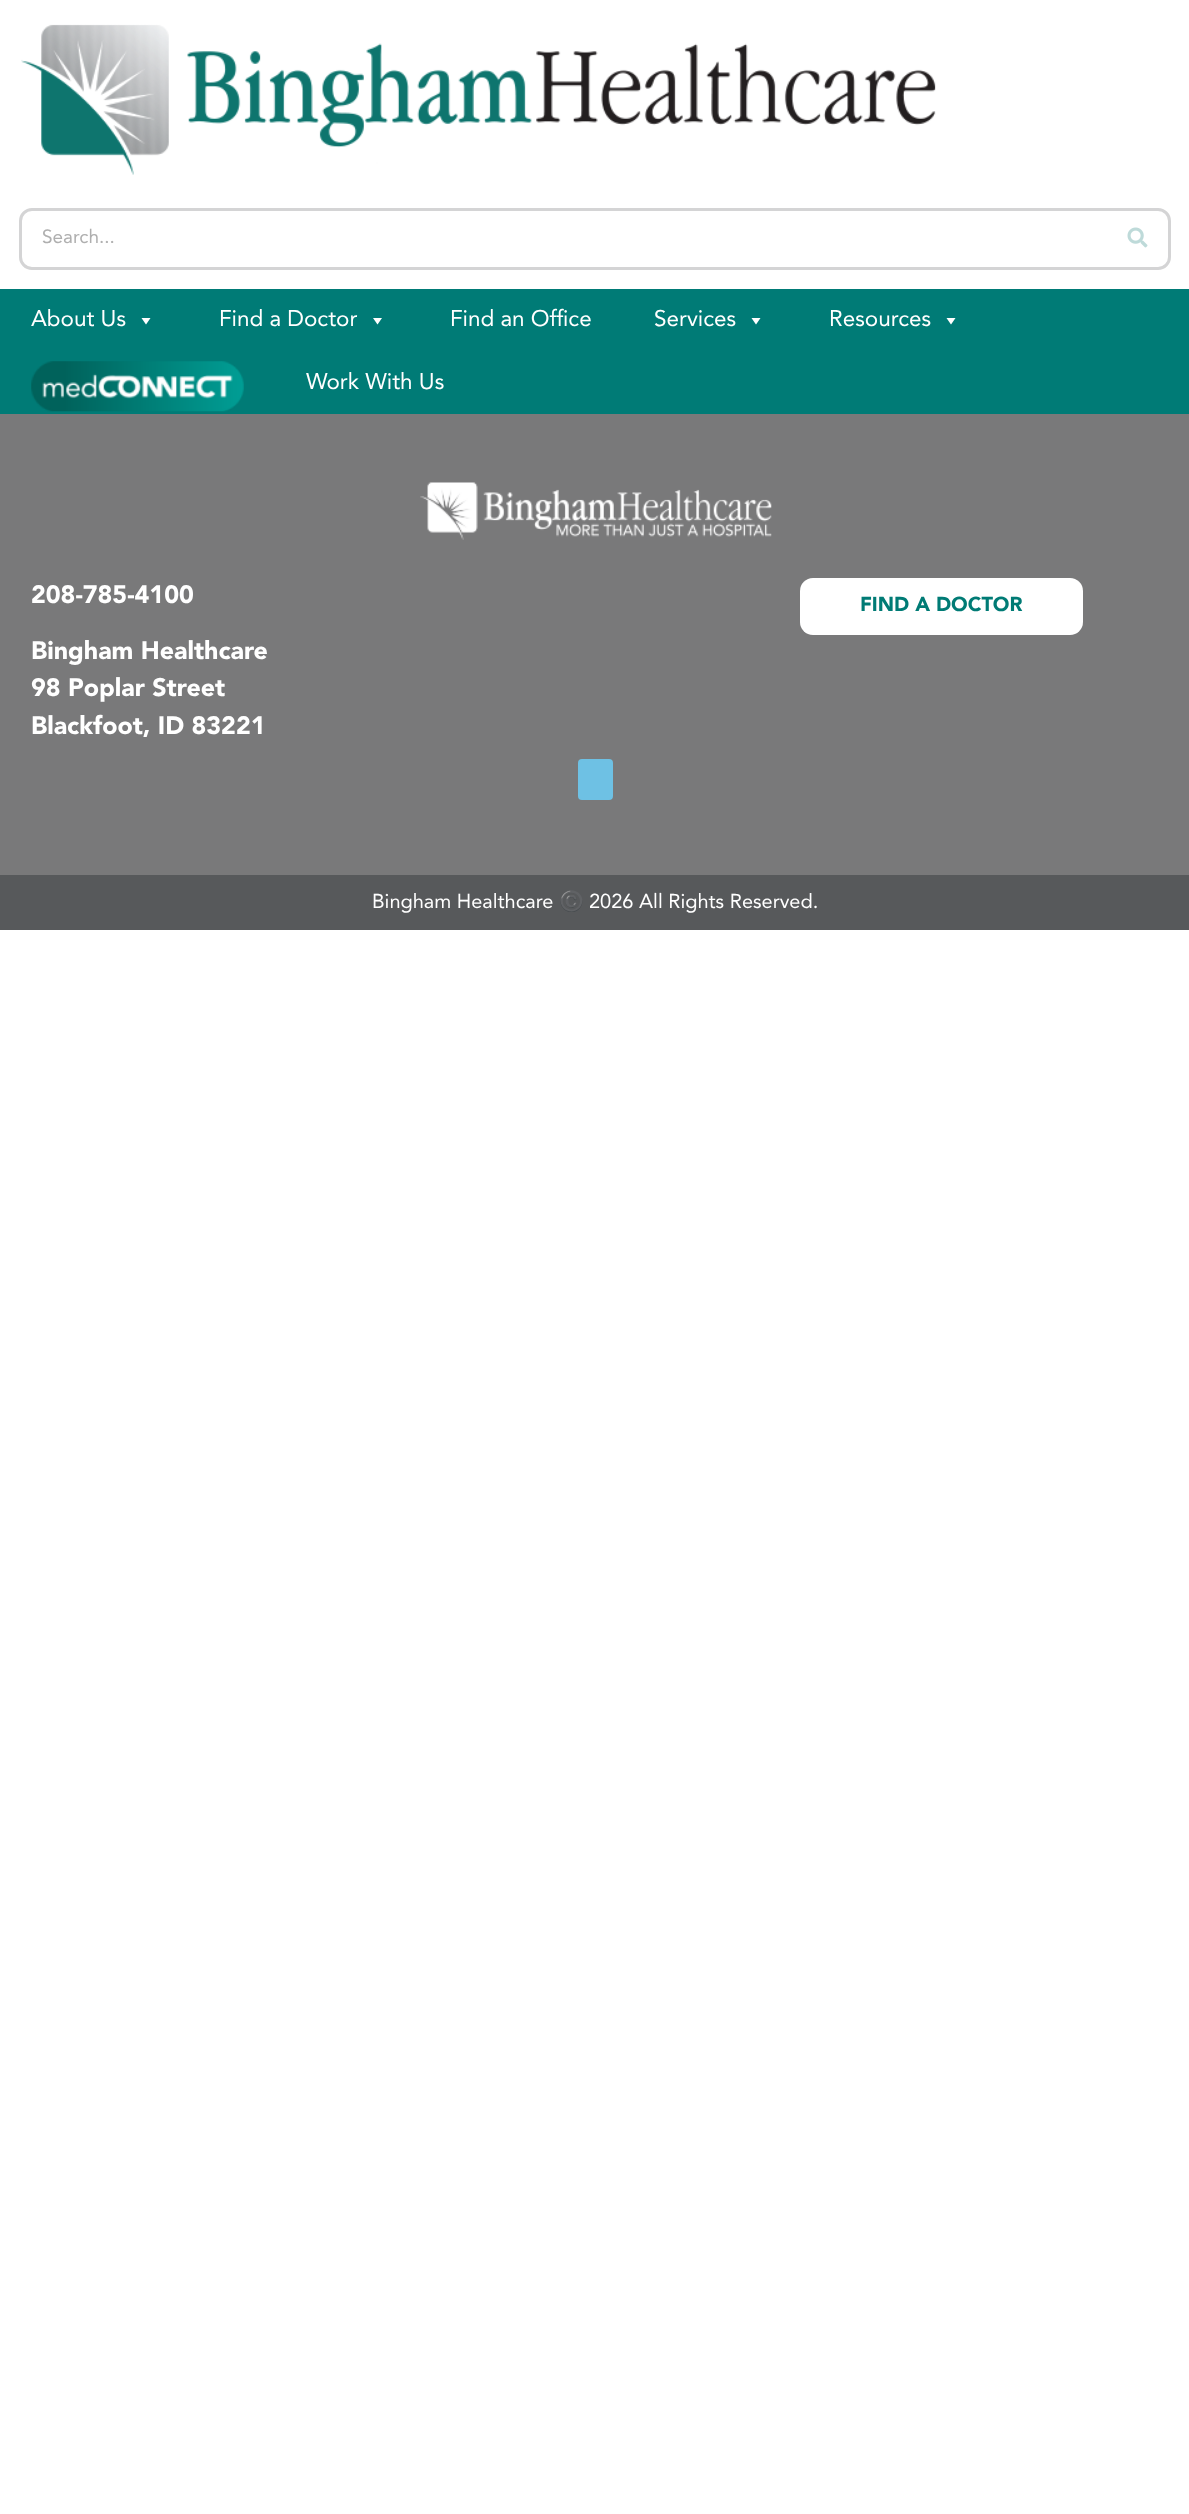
<svg xmlns="http://www.w3.org/2000/svg" width="1189" height="2514">
<rect width="100%" height="100%" fill="#fff"/>
<image x="21" y="24" width="915" height="151" href="media/1.png"/>
<rect x="20.5" y="209.5" width="1149" height="59" rx="11.5" fill="none" stroke="#d4d4d5" stroke-width="3"/>
<text x="42" y="243" style="font-family:Avenir;font-size:19px;fill:#afafaf">Search...</text>
<image x="1127" y="227" width="21" height="21" href="media/2.png"/>
<rect y="289" width="1189" height="125" fill="#007b76"/>
<text x="31" y="326" style="font-family:Avenir;font-size:22.5px;fill:#fff">About Us</text>
<path d="M150.5 318l-4.5 6.5l-4.5-6.5z" fill="#fff"/>
<text x="219" y="326" style="font-family:Avenir;font-size:22.5px;fill:#fff">Find a Doctor</text>
<path d="M382 318l-4.5 6.5l-4.5-6.5z" fill="#fff"/>
<text x="450" y="326" style="font-family:Avenir;font-size:22.5px;fill:#fff">Find an Office</text>
<text x="654" y="326" style="font-family:Avenir;font-size:22.5px;fill:#fff">Services</text>
<path d="M760.5 318l-4.5 6.5l-4.5-6.5z" fill="#fff"/>
<text x="829" y="326" style="font-family:Avenir;font-size:22.5px;fill:#fff">Resources</text>
<path d="M955.5 318l-4.5 6.5l-4.5-6.5z" fill="#fff"/>
<image x="31" y="361" width="213" height="51" href="media/3.png"/>
<text x="306" y="389" style="font-family:Avenir;font-size:22.5px;fill:#fff">Work With Us</text>
<rect y="414" width="1189" height="461" fill="#79797a"/>
<image x="420" y="482" width="352" height="58" href="media/4.png"/>
<text x="31" y="603" style="font-family:Avenir;font-size:25px;font-weight:900;fill:#fff">208-785-4100</text>
<text x="31" y="659" style="font-family:Avenir;font-size:25px;font-weight:900;fill:#fff">Bingham Healthcare</text>
<text x="31" y="696" style="font-family:Avenir;font-size:25px;font-weight:900;fill:#fff">98 Poplar Street</text>
<text x="31" y="734" style="font-family:Avenir;font-size:25px;font-weight:900;fill:#fff">Blackfoot, ID 83221</text>
<rect x="800" y="578" width="283" height="57" rx="13" fill="#fff"/>
<text x="860" y="611" style="font-family:Avenir;font-size:20px;font-weight:900;fill:#007b75">FIND A DOCTOR</text>
<rect x="578" y="759" width="35" height="41" rx="4" fill="#6ec1e4"/>
<rect y="875" width="1189" height="55" fill="#57595b"/>
<text x="372" y="908" style="font-family:Avenir;font-size:20px;fill:#fff">Bingham Healthcare</text>
<text x="559" y="908" style="font-family:Noto Color Emoji;font-size:20px;fill:#fff">©️</text>
<text x="589" y="908" style="font-family:Avenir;font-size:20px;fill:#fff">2026 All Rights Reserved.</text>
</svg>
